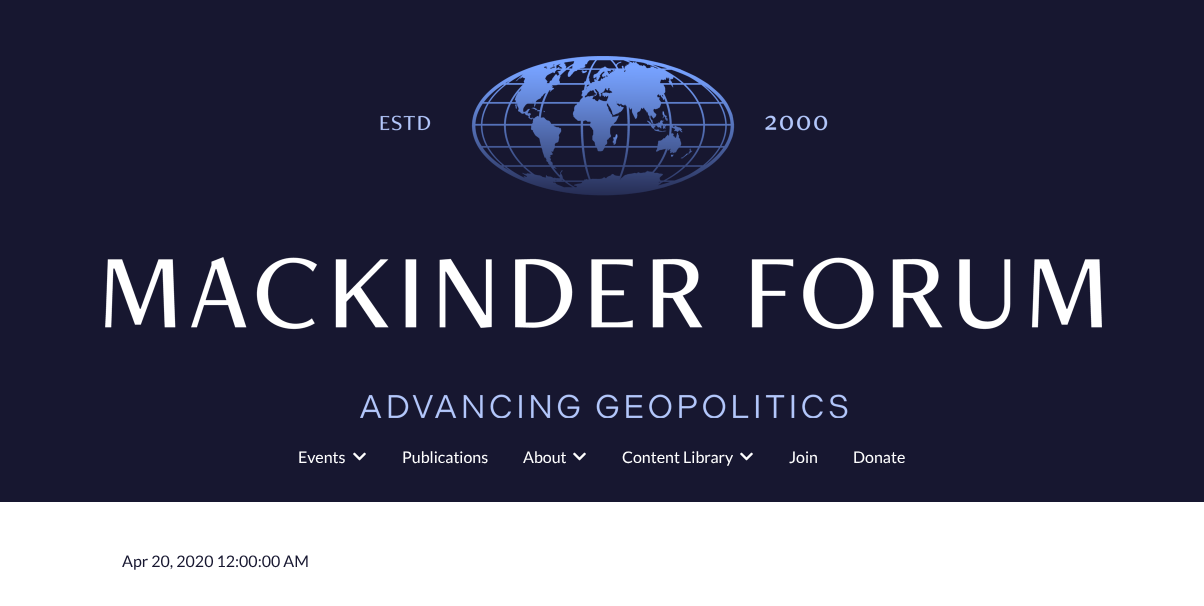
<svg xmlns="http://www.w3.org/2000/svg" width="1204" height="606">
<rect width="100%" height="100%" fill="#fff"/>
<rect width="1204" height="502" fill="#171730"/>
<image x="105" y="56" width="997" height="362" href="media/1.png"/>
<text x="298" y="463" style="font-family:Lato;font-size:16px;fill:#fff">Events</text>
<image x="353" y="452" width="13" height="9" href="media/2.png"/>
<text x="402" y="463" style="font-family:Lato;font-size:16px;fill:#fff">Publications</text>
<text x="523" y="463" style="font-family:Lato;font-size:16px;fill:#fff">About</text>
<image x="573" y="452" width="13" height="9" href="media/2.png"/>
<text x="622" y="463" style="font-family:Lato;font-size:16px;fill:#fff">Content Library</text>
<image x="740" y="452" width="13" height="9" href="media/2.png"/>
<text x="789" y="463" style="font-family:Lato;font-size:16px;fill:#fff">Join</text>
<text x="853" y="463" style="font-family:Lato;font-size:16px;fill:#fff">Donate</text>
<text x="122" y="567" style="font-family:Lato;font-size:16px;fill:#171730">Apr 20, 2020 12:00:00 AM</text>
</svg>
